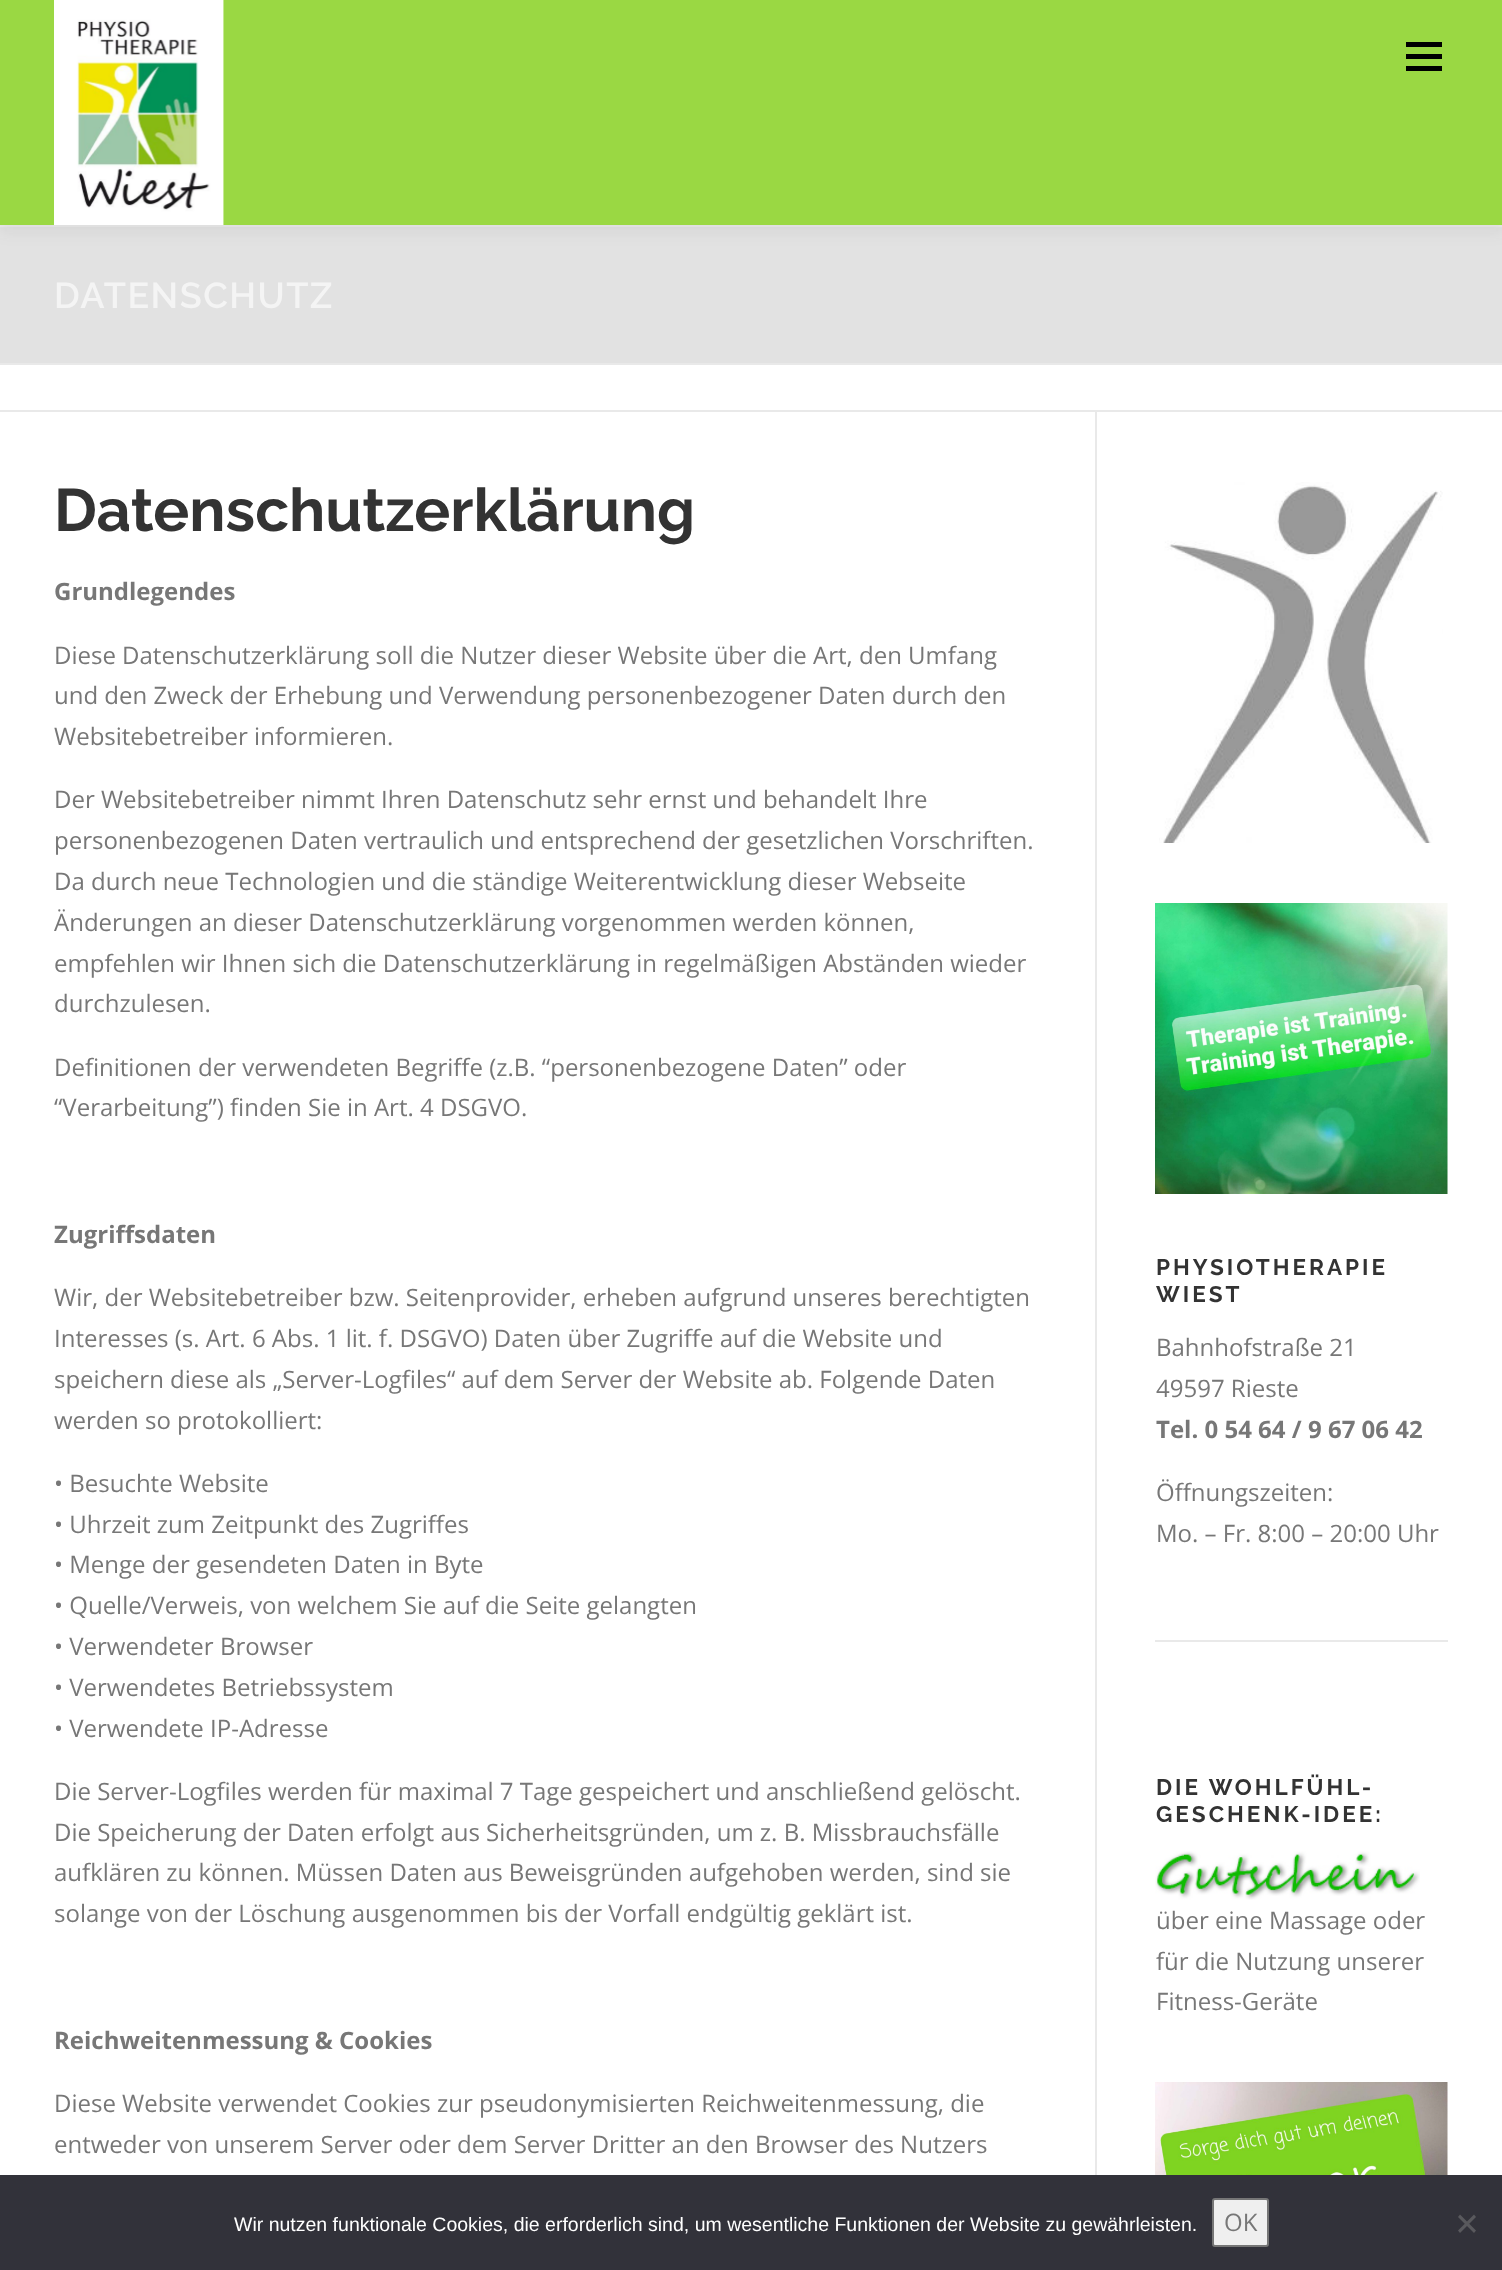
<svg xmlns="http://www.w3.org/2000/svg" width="1502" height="2270">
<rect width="100%" height="100%" fill="#fff"/>
<rect y="225" width="1502" height="2" fill="#e9e9e9"/>
<rect y="227" width="1502" height="136" fill="#e2e2e2"/>
<rect y="8" width="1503" height="225" fill="#3232320f" filter="blur(7.5px)"/>
<rect width="1502" height="225" fill="#9ad843"/>
<image x="54" y="0" width="170" height="225" href="media/1.png"/>
<rect x="1406" y="54" width="36" height="5" fill="#000"/>
<rect x="1406" y="42" width="36" height="5" fill="#000"/>
<rect x="1406" y="66" width="36" height="5" fill="#000"/>
<rect y="363" width="1502" height="2" fill="#e9e9e9"/>
<text x="54" y="308" style="font-family:Raleway;font-size:36px;font-weight:600;letter-spacing:1.5px;fill:#f4f4f4">DATENSCHUTZ</text>
<rect y="410" width="1502" height="2" fill="#e9e9e9"/>
<rect x="1095" y="411" width="2" height="1764" fill="#e9e9e9"/>
<text x="54" y="531" style="font-family:Raleway;font-size:60px;font-weight:bold;fill:#333">Datenschutzerklärung</text>
<text x="54" y="600" style="font-family:Open Sans;font-size:24px;font-weight:bold;fill:#777">Grundlegendes</text>
<text x="54" y="664" style="font-family:Open Sans;font-size:24px;fill:#777">Diese Datenschutzerklärung soll die Nutzer dieser Website über die Art, den Umfang</text>
<text x="54" y="704" style="font-family:Open Sans;font-size:24px;fill:#777">und den Zweck der Erhebung und Verwendung personenbezogener Daten durch den</text>
<text x="54" y="745" style="font-family:Open Sans;font-size:24px;fill:#777">Websitebetreiber informieren.</text>
<text x="54" y="808" style="font-family:Open Sans;font-size:24px;fill:#777">Der Websitebetreiber nimmt Ihren Datenschutz sehr ernst und behandelt Ihre</text>
<text x="54" y="849" style="font-family:Open Sans;font-size:24px;fill:#777">personenbezogenen Daten vertraulich und entsprechend der gesetzlichen Vorschriften.</text>
<text x="54" y="890" style="font-family:Open Sans;font-size:24px;fill:#777">Da durch neue Technologien und die ständige Weiterentwicklung dieser Webseite</text>
<text x="54" y="931" style="font-family:Open Sans;font-size:24px;fill:#777">Änderungen an dieser Datenschutzerklärung vorgenommen werden können,</text>
<text x="54" y="972" style="font-family:Open Sans;font-size:24px;fill:#777">empfehlen wir Ihnen sich die Datenschutzerklärung in regelmäßigen Abständen wieder</text>
<text x="54" y="1012" style="font-family:Open Sans;font-size:24px;fill:#777">durchzulesen.</text>
<text x="54" y="1076" style="font-family:Open Sans;font-size:24px;fill:#777">Definitionen der verwendeten Begriffe (z.B. “personenbezogene Daten” oder</text>
<text x="54" y="1116" style="font-family:Open Sans;font-size:24px;fill:#777">“Verarbeitung”) finden Sie in Art. 4 DSGVO.</text>
<text x="54" y="1243" style="font-family:Open Sans;font-size:24px;font-weight:bold;fill:#777">Zugriffsdaten</text>
<text x="54" y="1306" style="font-family:Open Sans;font-size:24px;fill:#777">Wir, der Websitebetreiber bzw. Seitenprovider, erheben aufgrund unseres berechtigten</text>
<text x="54" y="1347" style="font-family:Open Sans;font-size:24px;fill:#777">Interesses (s. Art. 6 Abs. 1 lit. f. DSGVO) Daten über Zugriffe auf die Website und</text>
<text x="54" y="1388" style="font-family:Open Sans;font-size:24px;fill:#777">speichern diese als „Server-Logfiles“ auf dem Server der Website ab. Folgende Daten</text>
<text x="54" y="1429" style="font-family:Open Sans;font-size:24px;fill:#777">werden so protokolliert:</text>
<text x="54" y="1492" style="font-family:Open Sans;font-size:24px;fill:#777">• Besuchte Website</text>
<text x="54" y="1533" style="font-family:Open Sans;font-size:24px;fill:#777">• Uhrzeit zum Zeitpunkt des Zugriffes</text>
<text x="54" y="1573" style="font-family:Open Sans;font-size:24px;fill:#777">• Menge der gesendeten Daten in Byte</text>
<text x="54" y="1614" style="font-family:Open Sans;font-size:24px;fill:#777">• Quelle/Verweis, von welchem Sie auf die Seite gelangten</text>
<text x="54" y="1655" style="font-family:Open Sans;font-size:24px;fill:#777">• Verwendeter Browser</text>
<text x="54" y="1696" style="font-family:Open Sans;font-size:24px;fill:#777">• Verwendetes Betriebssystem</text>
<text x="54" y="1737" style="font-family:Open Sans;font-size:24px;fill:#777">• Verwendete IP-Adresse</text>
<text x="54" y="1800" style="font-family:Open Sans;font-size:24px;fill:#777">Die Server-Logfiles werden für maximal 7 Tage gespeichert und anschließend gelöscht.</text>
<text x="54" y="1841" style="font-family:Open Sans;font-size:24px;fill:#777">Die Speicherung der Daten erfolgt aus Sicherheitsgründen, um z. B. Missbrauchsfälle</text>
<text x="54" y="1881" style="font-family:Open Sans;font-size:24px;fill:#777">aufklären zu können. Müssen Daten aus Beweisgründen aufgehoben werden, sind sie</text>
<text x="54" y="1922" style="font-family:Open Sans;font-size:24px;fill:#777">solange von der Löschung ausgenommen bis der Vorfall endgültig geklärt ist.</text>
<text x="54" y="2049" style="font-family:Open Sans;font-size:24px;font-weight:bold;fill:#777">Reichweitenmessung &amp; Cookies</text>
<text x="54" y="2112" style="font-family:Open Sans;font-size:24px;fill:#777">Diese Website verwendet Cookies zur pseudonymisierten Reichweitenmessung, die</text>
<text x="54" y="2153" style="font-family:Open Sans;font-size:24px;fill:#777">entweder von unserem Server oder dem Server Dritter an den Browser des Nutzers</text>
<image x="1159" y="482" width="284" height="361" href="media/2.png"/>
<image x="1155" y="903" width="293" height="291" href="media/3.png"/>
<text x="1156" y="1275" style="font-family:Raleway;font-size:22.5px;font-weight:bold;letter-spacing:3px;fill:#333">PHYSIOTHERAPIE</text>
<text x="1156" y="1302" style="font-family:Raleway;font-size:22.5px;font-weight:bold;letter-spacing:3px;fill:#333">WIEST</text>
<text x="1156" y="1356" style="font-family:Open Sans;font-size:24px;fill:#777">Bahnhofstraße 21</text>
<text x="1156" y="1397" style="font-family:Open Sans;font-size:24px;fill:#777">49597 Rieste</text>
<text x="1156" y="1438" style="font-family:Open Sans;font-size:24px;font-weight:bold;fill:#777">Tel. 0 54 64 / 9 67 06 42</text>
<text x="1156" y="1501" style="font-family:Open Sans;font-size:24px;fill:#777">Öffnungszeiten:</text>
<text x="1156" y="1542" style="font-family:Open Sans;font-size:24px;fill:#777">Mo. – Fr. 8:00 – 20:00 Uhr</text>
<rect x="1155" y="1640" width="293" height="2" fill="#e9e9e9"/>
<text x="1156" y="1795" style="font-family:Raleway;font-size:22.5px;font-weight:bold;letter-spacing:3px;fill:#333">DIE WOHLFÜHL-</text>
<text x="1156" y="1822" style="font-family:Raleway;font-size:22.5px;font-weight:bold;letter-spacing:3px;fill:#333">GESCHENK-IDEE:</text>
<image x="1155" y="1851" width="265" height="49" href="media/4.png"/>
<text x="1156" y="1929" style="font-family:Open Sans;font-size:24px;fill:#777">über eine Massage oder</text>
<text x="1156" y="1970" style="font-family:Open Sans;font-size:24px;fill:#777">für die Nutzung unserer</text>
<text x="1156" y="2010" style="font-family:Open Sans;font-size:24px;fill:#777">Fitness-Geräte</text>
<image x="1155" y="2082" width="293" height="93" href="media/5.png"/>
<rect y="2175" width="1502" height="95" fill="#32323a"/>
<text x="234" y="2231" style="font-family:Liberation Sans;font-size:19.5px;fill:#fff">Wir nutzen funktionale Cookies, die erforderlich sind, um wesentliche Funktionen der Website zu gewährleisten.</text>
<rect x="1213" y="2199" width="55" height="47" rx="2" fill="#efefef" stroke="#767676" stroke-width="2"/>
<text x="1224" y="2231" style="font-family:Open Sans;font-size:24px;fill:#777">OK</text>
<path d="M1474 2214.5l2 2.5l-16 16l-2-2.5z" fill="#59595d"/>
<path d="M1458 2217l2-2.5l16 16l-2 2.5z" fill="#59595d"/>
</svg>
